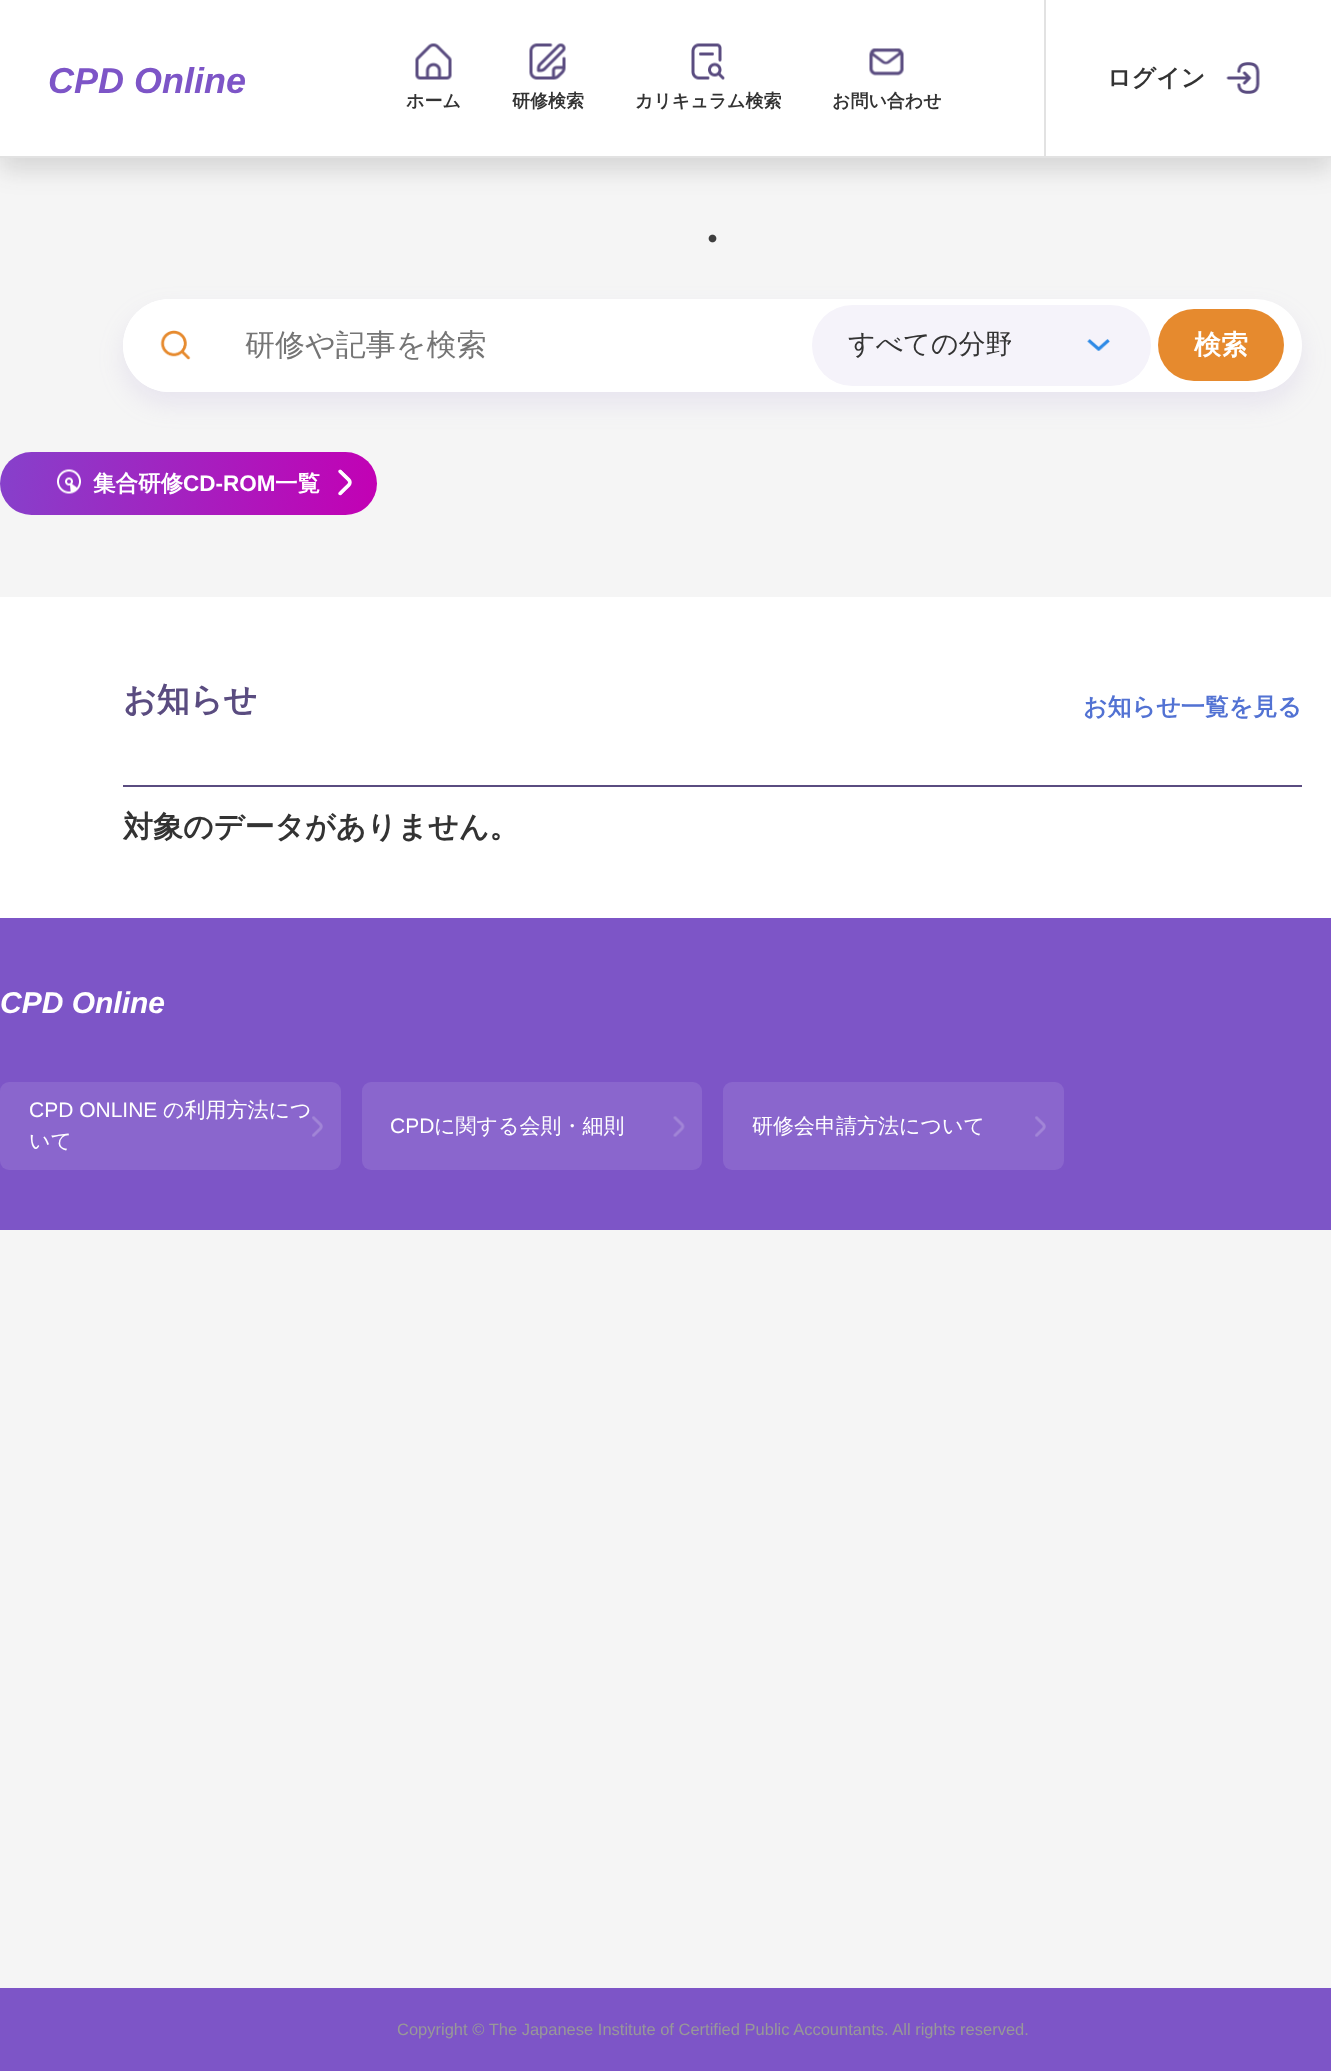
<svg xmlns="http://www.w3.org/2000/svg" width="1331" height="2071">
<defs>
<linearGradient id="g1" gradientUnits="userSpaceOnUse" x1="-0.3" y1="453" x2="377" y2="513"><stop offset="0" stop-color="#8641cb"/><stop offset="1" stop-color="#c300b4"/></linearGradient>
</defs>
<rect width="100%" height="100%" fill="#f5f5f5"/>
<rect y="12" width="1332" height="158" fill="#33333329" filter="blur(12px)"/>
<rect width="1331" height="156" fill="#fff"/>
<rect y="156" width="1331" height="2" fill="#e2e2e2"/>
<text x="48" y="93" style="font-family:Liberation Sans;font-size:36px;font-weight:bold;font-style:italic;fill:#7d55c7">CPD Online</text>
<rect x="1044" width="2" height="156" fill="#e2e2e2"/>
<text x="1107" y="86" style="font-family:WenQuanYi Zen Hei;font-size:24px;font-weight:bold;fill:#333">ログイン</text>
<image x="1226" y="62" width="34" height="32" href="media/1.png"/>
<image x="415" y="43" width="37" height="37" href="media/2.png"/>
<text x="406" y="107" style="font-family:WenQuanYi Zen Hei;font-size:18px;font-weight:bold;fill:#333">ホーム</text>
<image x="529" y="43" width="37" height="37" href="media/3.png"/>
<text x="512" y="107" style="font-family:WenQuanYi Zen Hei;font-size:18px;font-weight:bold;fill:#333">研修検索</text>
<image x="691" y="43" width="34" height="37" href="media/4.png"/>
<text x="635" y="107" style="font-family:WenQuanYi Zen Hei;font-size:18px;font-weight:bold;fill:#333">カリキュラム検索</text>
<image x="869" y="48" width="35" height="28" href="media/5.png"/>
<text x="832" y="107" style="font-family:WenQuanYi Zen Hei;font-size:18px;font-weight:bold;fill:#333">お問い合わせ</text>
<image x="708" y="234" width="9" height="9" href="media/6.png"/>
<rect x="123" y="311" width="1179" height="93" rx="46.5" fill="#9f8fcc29" filter="blur(12px)"/>
<rect x="123" y="299" width="1179" height="93" rx="46.5" fill="#fff"/>
<rect x="123" y="299" width="1022" height="93" rx="46.5" fill="#fff"/>
<image x="160" y="330" width="31" height="30" href="media/7.png"/>
<text x="245" y="355" style="font-family:WenQuanYi Zen Hei;font-size:30px;font-weight:500;fill:#757575">研修や記事を検索</text>
<rect x="812" y="305" width="339" height="81" rx="40.5" fill="#f5f3fa"/>
<text x="848" y="353" style="font-family:WenQuanYi Zen Hei;font-size:27px;font-weight:500;fill:#333">すべての分野</text>
<image x="1087" y="339" width="23" height="12" href="media/8.png"/>
<rect x="1158" y="309" width="126" height="72" rx="36" fill="#e68a2e"/>
<text x="1194" y="354" style="font-family:WenQuanYi Zen Hei;font-size:27px;font-weight:bold;fill:#fff">検索</text>
<rect y="452" width="377" height="63" rx="31.5" fill="url(#g1)"/>
<image x="57" y="469" width="24" height="25" href="media/9.png"/>
<text x="93" y="491" style="font-family:WenQuanYi Zen Hei;font-size:22.5px;font-weight:bold;fill:#fff">集合研修</text>
<text x="183" y="491" style="font-family:Liberation Sans;font-size:22.5px;font-weight:bold;fill:#fff">CD-ROM</text>
<text x="275" y="491" style="font-family:WenQuanYi Zen Hei;font-size:22.5px;font-weight:bold;fill:#fff">一覧</text>
<image x="338" y="469" width="14" height="27" href="media/10.png"/>
<rect y="597" width="1331" height="321" fill="#fff"/>
<rect x="123" y="785" width="1179" height="2" fill="#5a4c80"/>
<text x="123" y="711" style="font-family:WenQuanYi Zen Hei;font-size:33px;font-weight:bold;fill:#5a4c80">お知らせ</text>
<text x="1083" y="715" style="font-family:WenQuanYi Zen Hei;font-size:24px;font-weight:bold;fill:#5272d3">お知らせ一覧を見る</text>
<text x="123" y="837" style="font-family:WenQuanYi Zen Hei;font-size:30px;font-weight:bold;fill:#333">対象のデータがありません。</text>
<rect y="918" width="1331" height="312" fill="#7d55c7"/>
<text x="0" y="1013" style="font-family:Liberation Sans;font-size:30px;font-weight:bold;font-style:italic;fill:#fff">CPD Online</text>
<rect y="1082" width="341" height="88" rx="9" fill="#8a66cd"/>
<text x="29" y="1117" style="font-family:Liberation Sans;font-size:21px;fill:#fff">CPD ONLINE</text>
<text x="163" y="1117" style="font-family:WenQuanYi Zen Hei;font-size:21px;font-weight:500;fill:#fff">の利用方法につ</text>
<image x="312" y="1116" width="11" height="21" href="media/11.png"/>
<text x="29" y="1148" style="font-family:WenQuanYi Zen Hei;font-size:21px;font-weight:500;fill:#fff">いて</text>
<rect x="362" y="1082" width="340" height="88" rx="9" fill="#8a66cd"/>
<text x="390" y="1133" style="font-family:Liberation Sans;font-size:21px;fill:#fff">CPD</text>
<text x="434" y="1133" style="font-family:WenQuanYi Zen Hei;font-size:21px;font-weight:500;fill:#fff">に関する会則・細則</text>
<image x="673" y="1116" width="12" height="21" href="media/12.png"/>
<rect x="723" y="1082" width="341" height="88" rx="9" fill="#8a66cd"/>
<text x="752" y="1133" style="font-family:WenQuanYi Zen Hei;font-size:21px;font-weight:500;fill:#fff">研修会申請方法について</text>
<image x="1035" y="1116" width="11" height="21" href="media/11.png"/>
<rect y="1988" width="1331" height="83" fill="#7d55c7"/>
<text x="397" y="2035" style="font-family:Liberation Sans;font-size:16.5px;fill:#989898">Copyright © The Japanese Institute of Certified Public Accountants. All rights reserved.</text>
</svg>
